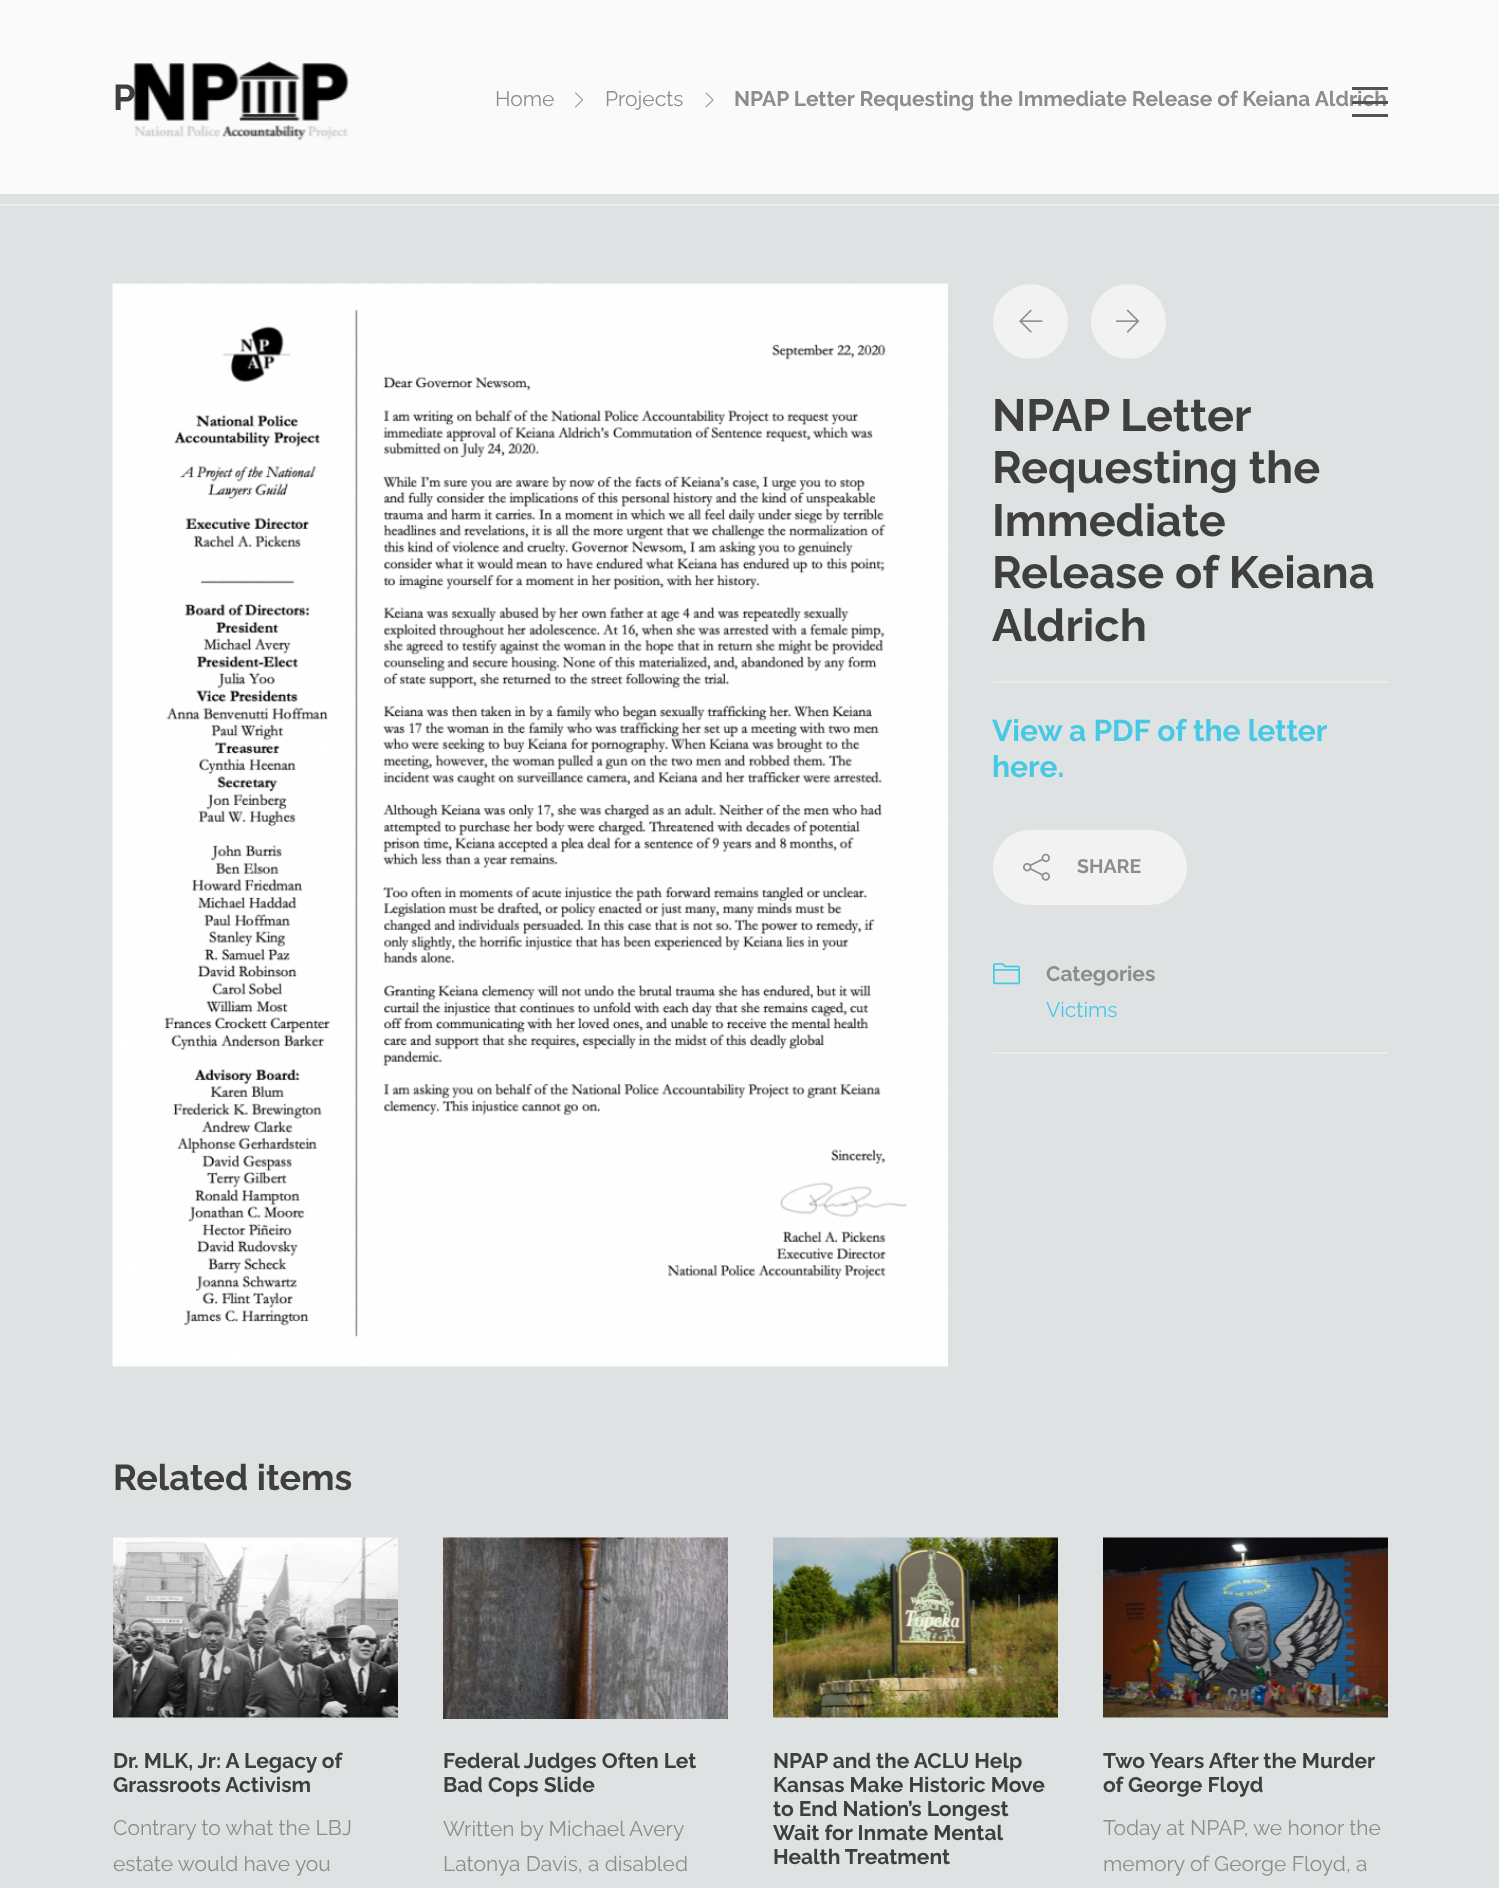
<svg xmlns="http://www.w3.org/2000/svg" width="1499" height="1888">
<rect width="100%" height="100%" fill="#dee2e2"/>
<rect y="204" width="1499" height="2" fill="#ededed"/>
<rect width="1499" height="194" fill="#fafafa"/>
<text x="113" y="110" style="font-family:Raleway;font-size:36px;font-weight:bold;fill:#3f3f3f">P</text>
<image x="133" y="61" width="216" height="80" href="media/1.png"/>
<text x="734" y="106" style="font-family:Raleway;font-size:21px;font-weight:bold;fill:#8d8d8d">NPAP Letter Requesting the Immediate Release of Keiana Aldrich</text>
<rect x="1352" y="101" width="36" height="3" fill="#545454"/>
<rect x="1352" y="87" width="36" height="3" fill="#545454"/>
<rect x="1352" y="114" width="36" height="3" fill="#545454"/>
<text x="495" y="106" style="font-family:Raleway;font-size:21px;fill:#8d8d8d">Home</text>
<image x="575" y="92" width="8" height="16" href="media/2.png"/>
<text x="605" y="106" style="font-family:Raleway;font-size:21px;fill:#8d8d8d">Projects</text>
<image x="705" y="92" width="9" height="16" href="media/3.png"/>
<image x="112" y="283" width="836" height="1084" href="media/4.png"/>
<circle cx="1030.5" cy="321.5" r="37.5" fill="#f2f2f2"/>
<image x="1019" y="309" width="24" height="24" href="media/5.png"/>
<circle cx="1128.5" cy="321.5" r="37.5" fill="#f2f2f2"/>
<image x="1116" y="309" width="24" height="24" href="media/6.png"/>
<rect x="993" y="681" width="395" height="2" fill="#ebebeb"/>
<text x="992" y="431" style="font-family:Raleway;font-size:45px;font-weight:bold;fill:#3f3f3f">NPAP Letter</text>
<text x="992" y="483" style="font-family:Raleway;font-size:45px;font-weight:bold;fill:#3f3f3f">Requesting the</text>
<text x="992" y="536" style="font-family:Raleway;font-size:45px;font-weight:bold;fill:#3f3f3f">Immediate</text>
<text x="992" y="588" style="font-family:Raleway;font-size:45px;font-weight:bold;fill:#3f3f3f">Release of Keiana</text>
<text x="992" y="641" style="font-family:Raleway;font-size:45px;font-weight:bold;fill:#3f3f3f">Aldrich</text>
<text x="992" y="741" style="font-family:Raleway;font-size:30px;font-weight:bold;fill:#47c9e5">View a PDF of the letter</text>
<text x="992" y="777" style="font-family:Raleway;font-size:30px;font-weight:bold;fill:#47c9e5">here.</text>
<rect x="993" y="830" width="194" height="75" rx="37.5" fill="#f2f2f2"/>
<image x="1023" y="853" width="27" height="28" href="media/7.png"/>
<text x="1077" y="873" style="font-family:Raleway;font-size:19.5px;font-weight:bold;fill:#8d8d8d">SHARE</text>
<rect x="993" y="1052" width="395" height="2" fill="#ebebeb"/>
<image x="993" y="963" width="27" height="22" href="media/8.png"/>
<text x="1046" y="981" style="font-family:Raleway;font-size:21px;font-weight:bold;fill:#8d8d8d">Categories</text>
<text x="1046" y="1017" style="font-family:Raleway;font-size:21px;fill:#47c9e5">Victims</text>
<text x="113" y="1490" style="font-family:Raleway;font-size:36px;font-weight:bold;fill:#3f3f3f">Related items</text>
<image x="113" y="1537" width="285" height="181" href="media/9.png"/>
<text x="113" y="1768" style="font-family:Raleway;font-size:21px;font-weight:bold;fill:#3f3f3f">Dr. MLK, Jr: A Legacy of</text>
<text x="113" y="1792" style="font-family:Raleway;font-size:21px;font-weight:bold;fill:#3f3f3f">Grassroots Activism</text>
<text x="113" y="1835" style="font-family:Raleway;font-size:21px;fill:#8d8d8d">Contrary to what the LBJ</text>
<text x="113" y="1871" style="font-family:Raleway;font-size:21px;fill:#8d8d8d">estate would have you</text>
<image x="443" y="1537" width="285" height="182" href="media/10.png"/>
<text x="443" y="1768" style="font-family:Raleway;font-size:21px;font-weight:bold;fill:#3f3f3f">Federal Judges Often Let</text>
<text x="443" y="1792" style="font-family:Raleway;font-size:21px;font-weight:bold;fill:#3f3f3f">Bad Cops Slide</text>
<text x="443" y="1836" style="font-family:Raleway;font-size:21px;fill:#8d8d8d">Written by Michael Avery</text>
<text x="443" y="1871" style="font-family:Raleway;font-size:21px;fill:#8d8d8d">Latonya Davis, a disabled</text>
<image x="773" y="1537" width="285" height="181" href="media/11.png"/>
<text x="773" y="1768" style="font-family:Raleway;font-size:21px;font-weight:bold;fill:#3f3f3f">NPAP and the ACLU Help</text>
<text x="773" y="1792" style="font-family:Raleway;font-size:21px;font-weight:bold;fill:#3f3f3f">Kansas Make Historic Move</text>
<text x="773" y="1816" style="font-family:Raleway;font-size:21px;font-weight:bold;fill:#3f3f3f">to End Nation’s Longest</text>
<text x="773" y="1840" style="font-family:Raleway;font-size:21px;font-weight:bold;fill:#3f3f3f">Wait for Inmate Mental</text>
<text x="773" y="1864" style="font-family:Raleway;font-size:21px;font-weight:bold;fill:#3f3f3f">Health Treatment</text>
<image x="1103" y="1537" width="285" height="181" href="media/12.png"/>
<text x="1103" y="1768" style="font-family:Raleway;font-size:21px;font-weight:bold;fill:#3f3f3f">Two Years After the Murder</text>
<text x="1103" y="1792" style="font-family:Raleway;font-size:21px;font-weight:bold;fill:#3f3f3f">of George Floyd</text>
<text x="1103" y="1835" style="font-family:Raleway;font-size:21px;fill:#8d8d8d">Today at NPAP, we honor the</text>
<text x="1103" y="1871" style="font-family:Raleway;font-size:21px;fill:#8d8d8d">memory of George Floyd, a</text>
</svg>
